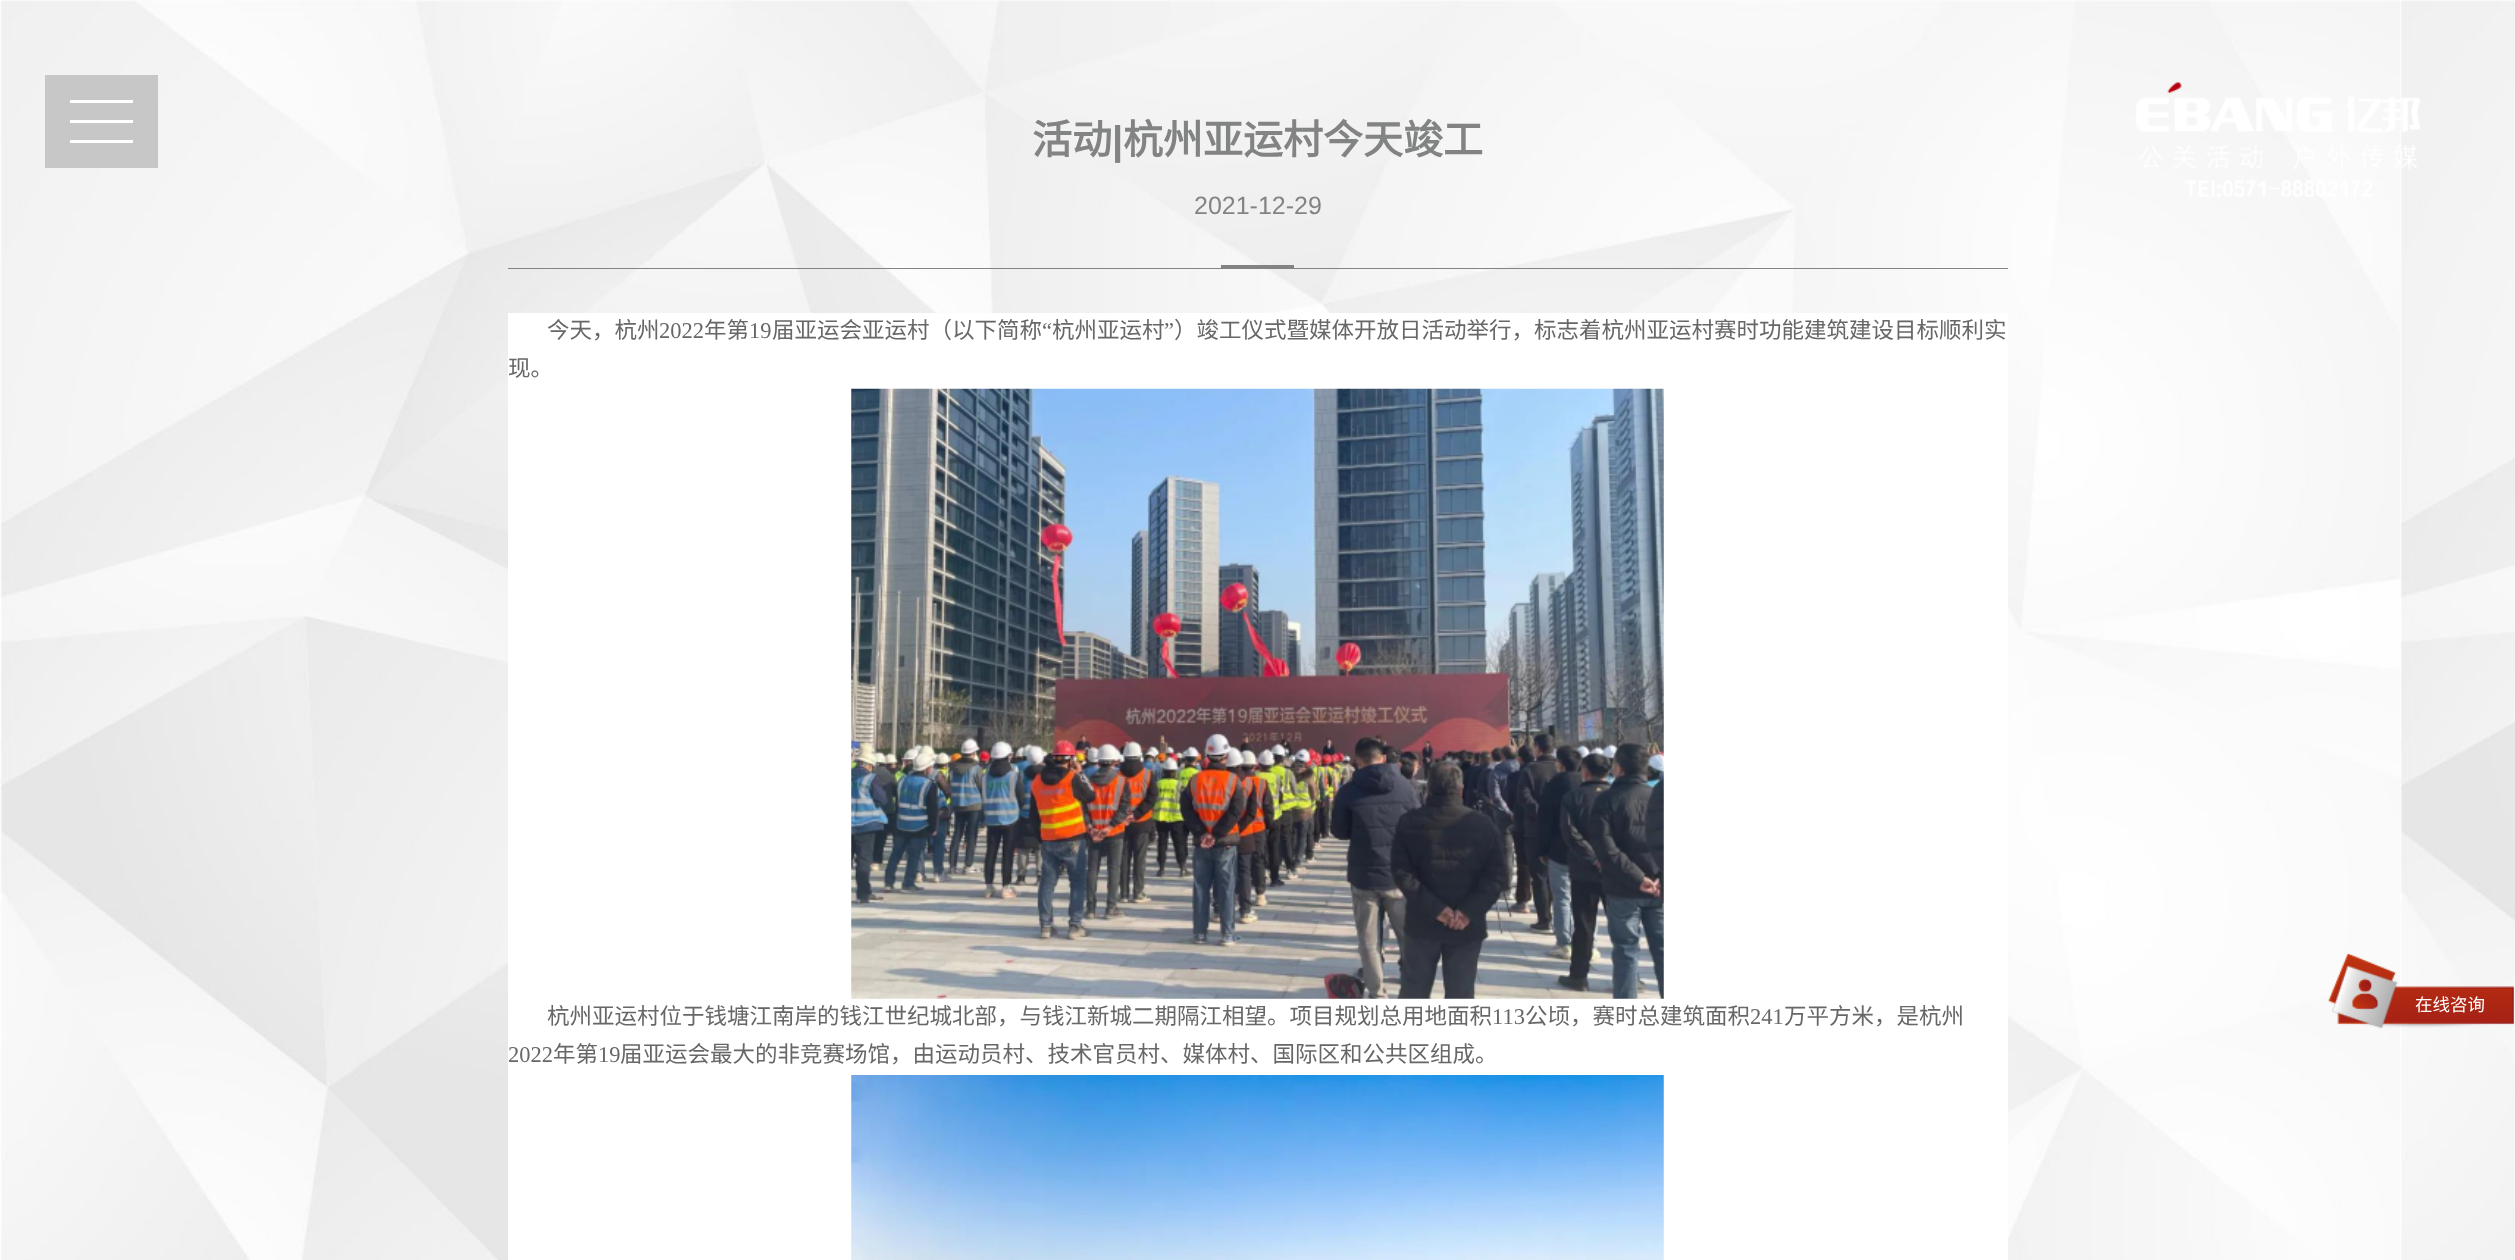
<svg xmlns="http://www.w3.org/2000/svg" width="2515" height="1260">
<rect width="100%" height="100%" fill="#fff"/>
<image x="0" y="0" width="2515" height="1260" href="media/1.png"/>
<rect x="45" y="75" width="113" height="93" fill="#c7c7c8"/>
<rect x="70" y="100" width="63" height="3" fill="#fff"/>
<rect x="70" y="120" width="63" height="3" fill="#fff"/>
<rect x="70" y="140" width="63" height="3" fill="#fff"/>
<rect x="508" y="268" width="1500" height="1" fill="#828383"/>
<text x="1032" y="154" style="font-family:Noto Sans CJK SC;font-size:40px;font-weight:bold;fill:#828483">活动</text>
<text x="1112" y="154" style="font-family:Liberation Sans;font-size:40px;font-weight:bold;fill:#828483">|</text>
<text x="1123" y="154" style="font-family:Noto Sans CJK SC;font-size:40px;font-weight:bold;fill:#828483">杭州亚运村今天竣工</text>
<text x="1194" y="214" style="font-family:Liberation Sans;font-size:25px;fill:#828483">2021-12-29</text>
<rect x="1221" y="265" width="73" height="3" fill="#828383"/>
<rect x="508" y="313" width="1500" height="947" fill="#fff"/>
<text x="547" y="338" style="font-family:Noto Sans CJK SC;font-size:22.5px;fill:#676767">今天，杭州</text>
<text x="659" y="338" style="font-family:Liberation Serif;font-size:22.5px;fill:#676767">2022</text>
<text x="704" y="338" style="font-family:Noto Sans CJK SC;font-size:22.5px;fill:#676767">年第</text>
<text x="749" y="338" style="font-family:Liberation Serif;font-size:22.5px;fill:#676767">19</text>
<text x="772" y="338" style="font-family:Noto Sans CJK SC;font-size:22.5px;fill:#676767">届亚运会亚运村（以下简称</text>
<text x="1042" y="338" style="font-family:Liberation Serif;font-size:22.5px;fill:#676767">“</text>
<text x="1052" y="338" style="font-family:Noto Sans CJK SC;font-size:22.5px;fill:#676767">杭州亚运村</text>
<text x="1164" y="338" style="font-family:Liberation Serif;font-size:22.5px;fill:#676767">”</text>
<text x="1174" y="338" style="font-family:Noto Sans CJK SC;font-size:22.5px;fill:#676767">）竣工仪式暨媒体开放日活动举行，标志着杭州亚运村赛时功能建筑建设目标顺利实</text>
<text x="508" y="376" style="font-family:Noto Sans CJK SC;font-size:22.5px;fill:#676767">现。</text>
<image x="851" y="388" width="813" height="611" href="media/2.png"/>
<text x="547" y="1024" style="font-family:Noto Sans CJK SC;font-size:22.5px;fill:#676767">杭州亚运村位于钱塘江南岸的钱江世纪城北部，与钱江新城二期隔江相望。项目规划总用地面积</text>
<text x="1492" y="1024" style="font-family:Liberation Serif;font-size:22.5px;fill:#676767">113</text>
<text x="1525" y="1024" style="font-family:Noto Sans CJK SC;font-size:22.5px;fill:#676767">公顷，赛时总建筑面积</text>
<text x="1750" y="1024" style="font-family:Liberation Serif;font-size:22.5px;fill:#676767">241</text>
<text x="1784" y="1024" style="font-family:Noto Sans CJK SC;font-size:22.5px;fill:#676767">万平方米，是杭州</text>
<text x="508" y="1062" style="font-family:Liberation Serif;font-size:22.5px;fill:#676767">2022</text>
<text x="553" y="1062" style="font-family:Noto Sans CJK SC;font-size:22.5px;fill:#676767">年第</text>
<text x="598" y="1062" style="font-family:Liberation Serif;font-size:22.5px;fill:#676767">19</text>
<text x="620" y="1062" style="font-family:Noto Sans CJK SC;font-size:22.5px;fill:#676767">届亚运会最大的非竞赛场馆，由运动员村、技术官员村、媒体村、国际区和公共区组成。</text>
<image x="851" y="1075" width="813" height="185" href="media/3.png"/>
<image x="2136" y="82" width="284" height="115" href="media/4.png"/>
<image x="2328" y="953" width="186" height="76" href="media/5.png"/>
<text x="2415" y="1011" style="font-family:Noto Sans CJK SC;font-size:17.5px;fill:#fff">在线咨询</text>
</svg>
